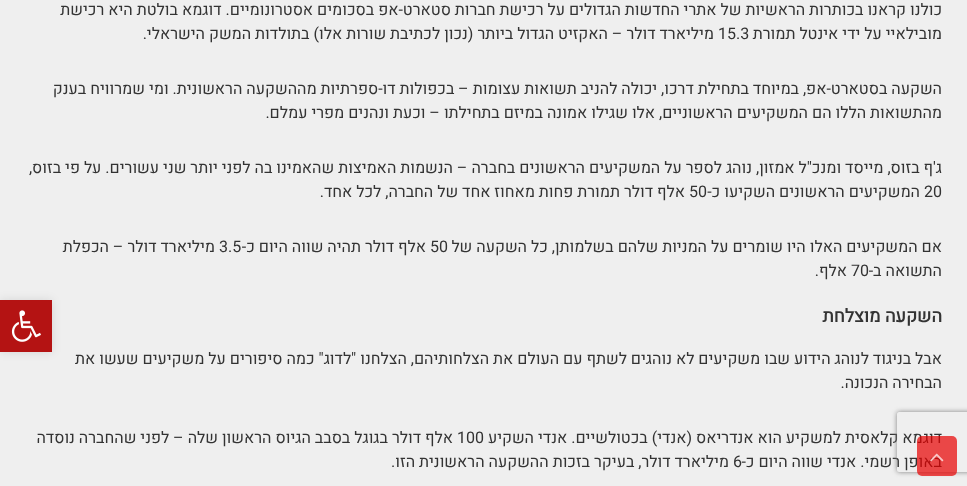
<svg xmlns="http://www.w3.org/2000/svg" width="967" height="486">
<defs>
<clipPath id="clip1"><path d="M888 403h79v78h-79zm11 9h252c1 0 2 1 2 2v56c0 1-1 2-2 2h-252c-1 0-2-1-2-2v-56c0-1 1-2 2-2z" clip-rule="evenodd"/></clipPath>
</defs>
<rect width="100%" height="100%" fill="#efefef"/>
<text x="942" y="15" style="font-family:Heebo;font-size:16px;direction:rtl;fill:#333">כולנו קראנו בכותרות הראשיות של אתרי החדשות הגדולים על רכישת חברות סטארט-אפ בסכומים אסטרונומיים. דוגמא בולטת היא רכישת</text>
<text x="942" y="39" style="font-family:Heebo;font-size:16px;direction:rtl;fill:#333">מובילאיי על ידי אינטל תמורת</text>
<text x="718" y="39" style="font-family:Heebo;font-size:16px;fill:#333">15.3</text>
<text x="714" y="39" style="font-family:Heebo;font-size:16px;direction:rtl;fill:#333">מיליארד דולר – האקזיט הגדול ביותר (נכון לכתיבת שורות אלו) בתולדות המשק הישראלי.</text>
<text x="942" y="94" style="font-family:Heebo;font-size:16px;direction:rtl;fill:#333">השקעה בסטארט-אפ, במיוחד בתחילת דרכו, יכולה להניב תשואות עצומות – בכפולות דו-ספרתיות מההשקעה הראשונית. ומי שמרוויח בענק</text>
<text x="942" y="118" style="font-family:Heebo;font-size:16px;direction:rtl;fill:#333">מהתשואות הללו הם המשקיעים הראשוניים, אלו שגילו אמונה במיזם בתחילתו – וכעת ונהנים מפרי עמלם.</text>
<text x="942" y="173" style="font-family:Heebo;font-size:16px;direction:rtl;fill:#333">ג'ף בזוס, מייסד ומנכ"ל אמזון, נוהג לספר על המשקיעים הראשונים בחברה – הנשמות האמיצות שהאמינו בה לפני יותר שני עשורים. על פי בזוס,</text>
<text x="924" y="197" style="font-family:Heebo;font-size:16px;fill:#333">20</text>
<text x="920" y="197" style="font-family:Heebo;font-size:16px;direction:rtl;fill:#333">המשקיעים הראשונים השקיעו כ-</text>
<text x="689" y="197" style="font-family:Heebo;font-size:16px;fill:#333">50</text>
<text x="685" y="197" style="font-family:Heebo;font-size:16px;direction:rtl;fill:#333">אלף דולר תמורת פחות מאחוז אחד של החברה, לכל אחד.</text>
<text x="942" y="252" style="font-family:Heebo;font-size:16px;direction:rtl;fill:#333">אם המשקיעים האלו היו שומרים על המניות שלהם בשלמותן, כל השקעה של</text>
<text x="430" y="252" style="font-family:Heebo;font-size:16px;fill:#333">50</text>
<text x="426" y="252" style="font-family:Heebo;font-size:16px;direction:rtl;fill:#333">אלף דולר תהיה שווה היום כ-</text>
<text x="219" y="252" style="font-family:Heebo;font-size:16px;fill:#333">3.5</text>
<text x="215" y="252" style="font-family:Heebo;font-size:16px;direction:rtl;fill:#333">מיליארד דולר – הכפלת</text>
<text x="942" y="276" style="font-family:Heebo;font-size:16px;direction:rtl;fill:#333">התשואה ב-</text>
<text x="851" y="276" style="font-family:Heebo;font-size:16px;fill:#333">70</text>
<text x="847" y="276" style="font-family:Heebo;font-size:16px;direction:rtl;fill:#333">אלף.</text>
<text x="942" y="322" style="font-family:Heebo;font-size:18px;font-weight:bold;direction:rtl;fill:#333">השקעה מוצלחת</text>
<text x="942" y="364" style="font-family:Heebo;font-size:16px;direction:rtl;fill:#333">אבל בניגוד לנוהג הידוע שבו משקיעים לא נוהגים לשתף עם העולם את הצלחותיהם, הצלחנו "לדוג" כמה סיפורים על משקיעים שעשו את</text>
<text x="942" y="388" style="font-family:Heebo;font-size:16px;direction:rtl;fill:#333">הבחירה הנכונה.</text>
<text x="942" y="443" style="font-family:Heebo;font-size:16px;direction:rtl;fill:#333">דוגמא קלאסית למשקיע הוא אנדריאס (אנדי) בכטולשיים. אנדי השקיע</text>
<text x="457" y="443" style="font-family:Heebo;font-size:16px;fill:#333">100</text>
<text x="453" y="443" style="font-family:Heebo;font-size:16px;direction:rtl;fill:#333">אלף דולר בגוגל בסבב הגיוס הראשון שלה – לפני שהחברה נוסדה</text>
<text x="942" y="467" style="font-family:Heebo;font-size:16px;direction:rtl;fill:#333">באופן רשמי. אנדי שווה היום כ-</text>
<text x="733" y="467" style="font-family:Heebo;font-size:16px;fill:#333">6</text>
<text x="729" y="467" style="font-family:Heebo;font-size:16px;direction:rtl;fill:#333">מיליארד דולר, בעיקר בזכות ההשקעה הראשונית הזו.</text>
<g clip-path="url(#clip1)">
<rect x="897" y="412" width="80" height="60" rx="2" fill="#808080" filter="blur(2.5px)"/>
</g>
<rect x="917" y="436" width="40" height="40" rx="5" fill="#e80000b3"/>
<image x="930" y="453" width="14" height="9" href="media/1.png"/>
<rect y="300" width="52" height="52" fill="#0000001a" filter="blur(5px)"/>
<rect y="300" width="52" height="52" fill="#b41313"/>
<image x="11" y="310" width="30" height="32" href="media/2.png"/>
</svg>
